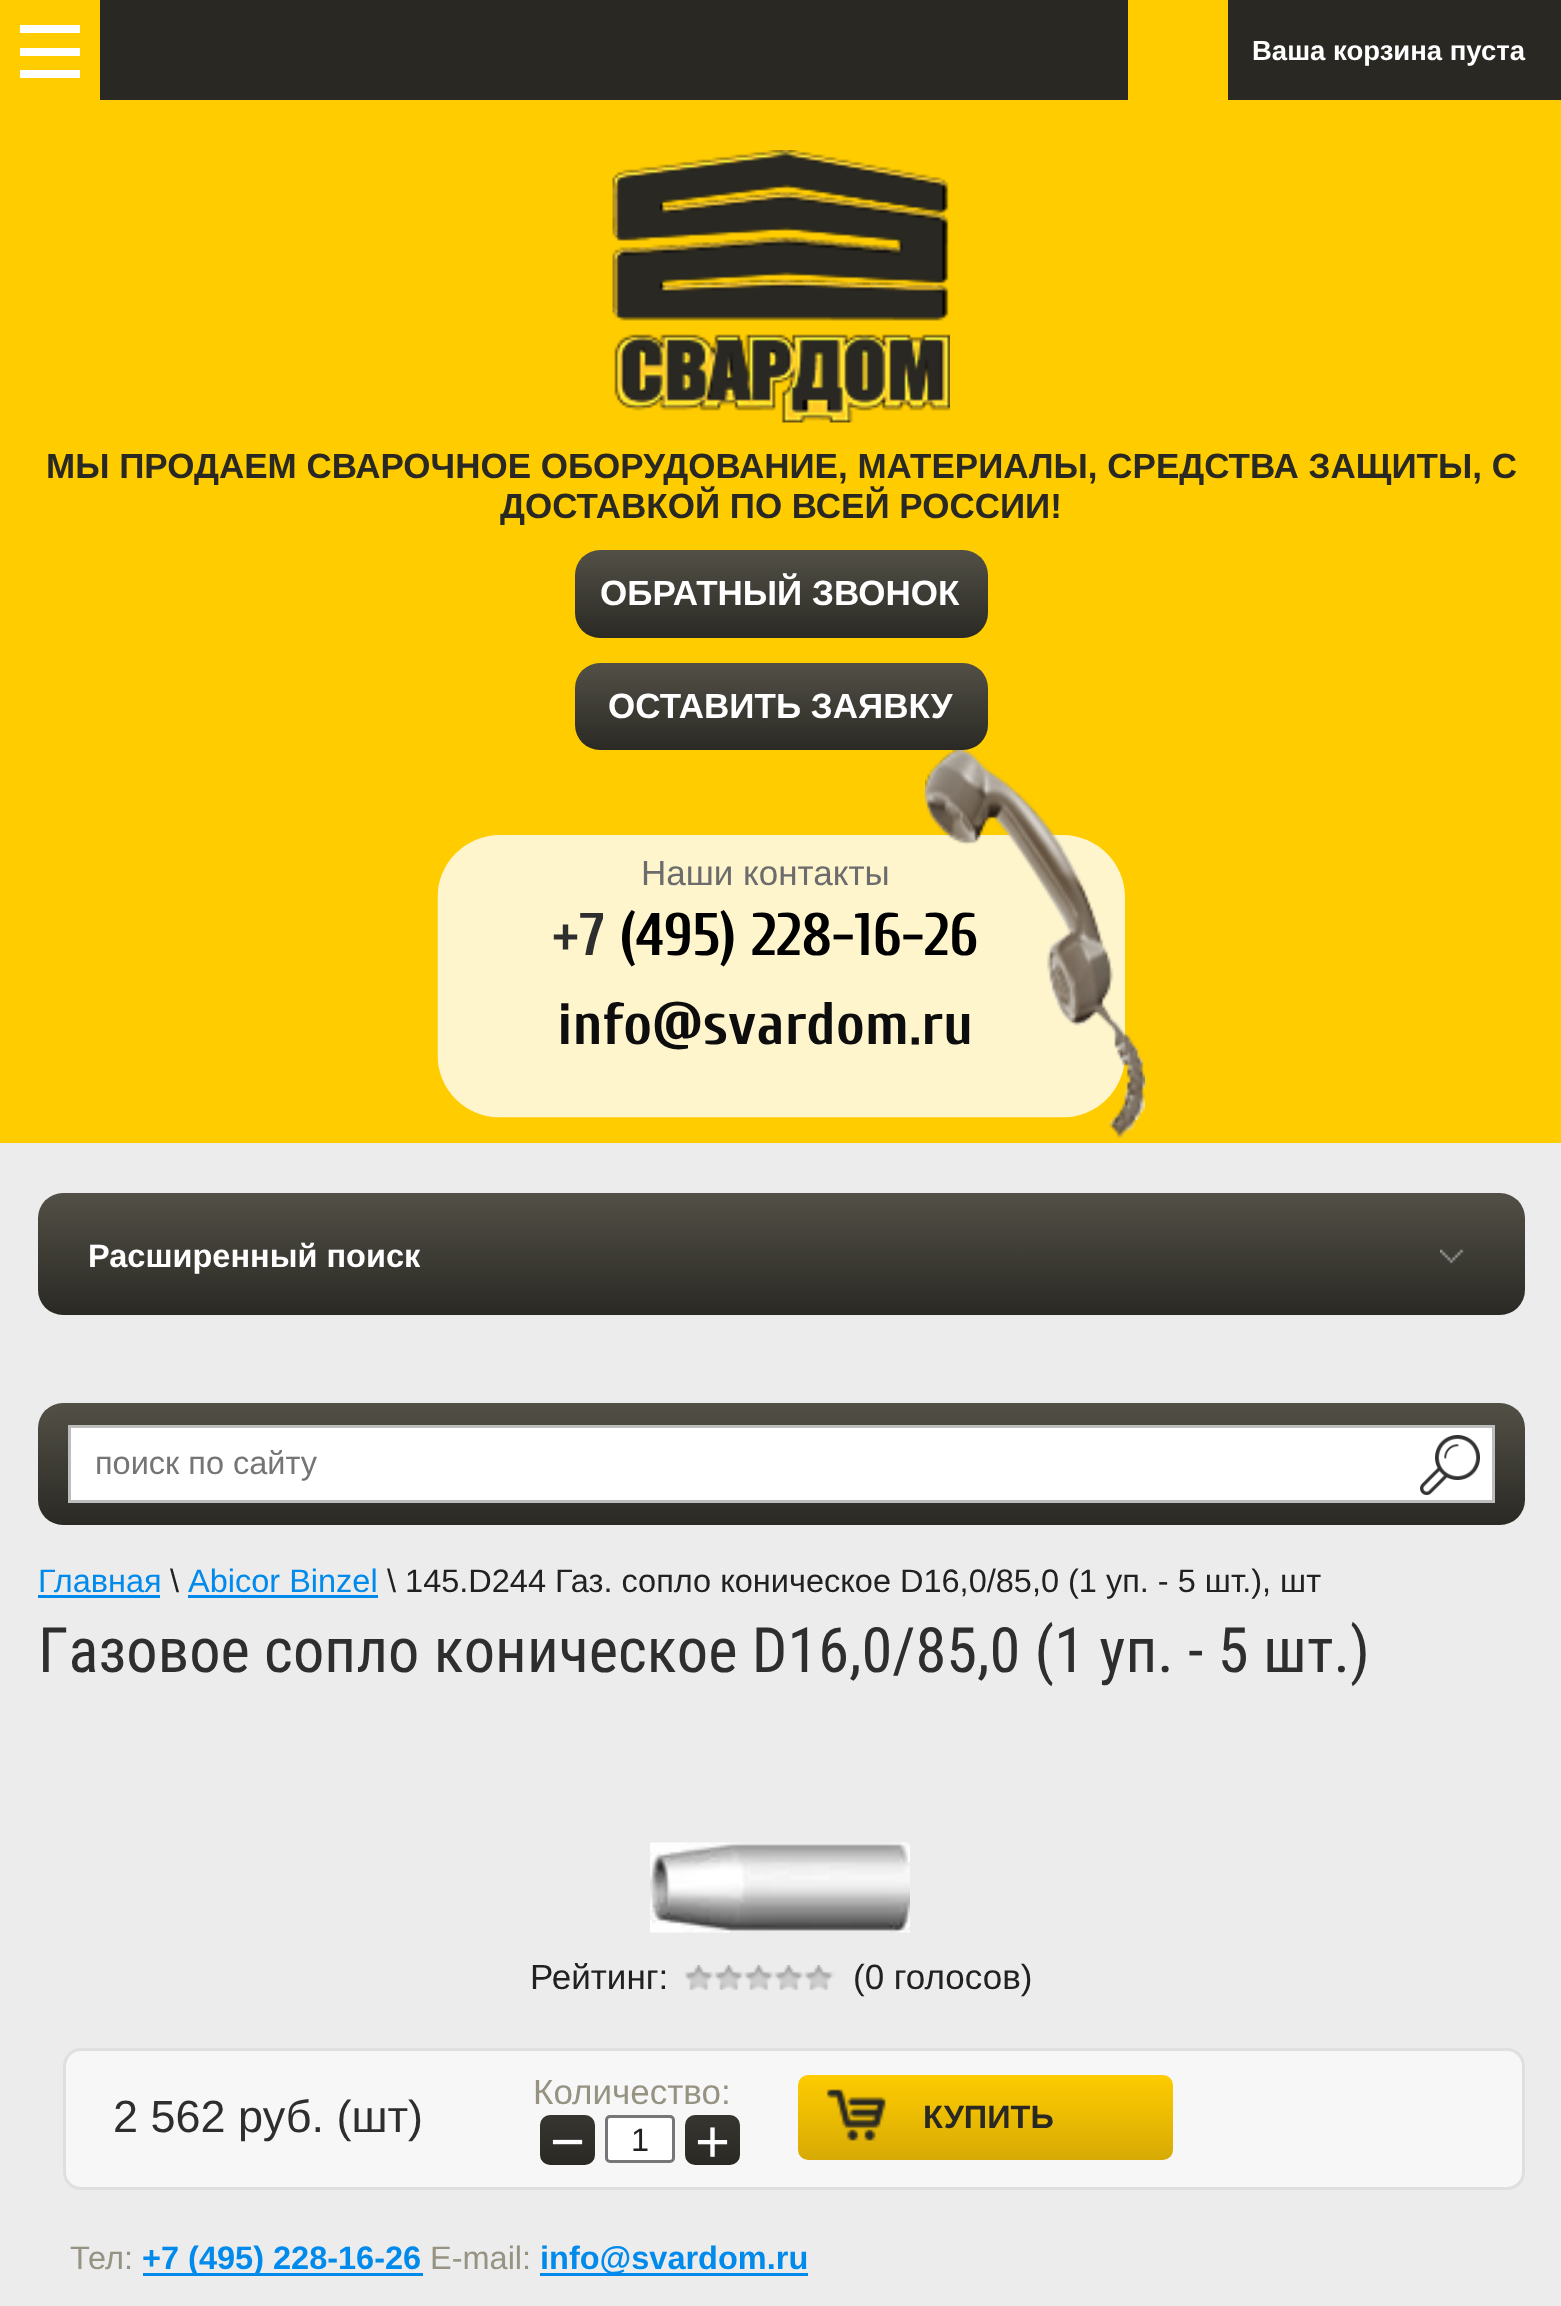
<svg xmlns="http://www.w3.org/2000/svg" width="1561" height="2306">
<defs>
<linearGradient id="g1" gradientUnits="userSpaceOnUse" x1="781" y1="1403" x2="781" y2="1525"><stop offset="0" stop-color="#525046"/><stop offset="1" stop-color="#2a2924"/></linearGradient>
<linearGradient id="g2" gradientUnits="userSpaceOnUse" x1="568" y1="2115" x2="568" y2="2165"><stop offset="0" stop-color="#37352f"/><stop offset="1" stop-color="#2a2924"/></linearGradient>
<linearGradient id="g3" gradientUnits="userSpaceOnUse" x1="713" y1="2115" x2="713" y2="2165"><stop offset="0" stop-color="#37352f"/><stop offset="1" stop-color="#2a2924"/></linearGradient>
<linearGradient id="g4" gradientUnits="userSpaceOnUse" x1="985" y1="2075" x2="985" y2="2160"><stop offset="0" stop-color="#fc0"/><stop offset="1" stop-color="#d7aa05"/></linearGradient>
<linearGradient id="g5" gradientUnits="userSpaceOnUse" x1="781" y1="1192" x2="781" y2="1315"><stop offset="0" stop-color="#525046"/><stop offset="1" stop-color="#2a2924"/></linearGradient>
<linearGradient id="g6" gradientUnits="userSpaceOnUse" x1="781" y1="550" x2="781" y2="638"><stop offset="0" stop-color="#525046"/><stop offset="1" stop-color="#2a2924"/></linearGradient>
<linearGradient id="g7" gradientUnits="userSpaceOnUse" x1="781" y1="663" x2="781" y2="750"><stop offset="0" stop-color="#525046"/><stop offset="1" stop-color="#2a2924"/></linearGradient>
</defs>
<rect width="100%" height="100%" fill="#ececec"/>
<rect x="100" width="1461" height="100" fill="#292823"/>
<rect x="1128" width="100" height="100" fill="#fc0"/>
<text x="1252" y="60" style="font-family:Liberation Sans;font-size:27.5px;font-weight:bold;fill:#fff">Ваша корзина пуста</text>
<rect x="38" y="1403" width="1487" height="122" rx="25" fill="url(#g1)"/>
<rect x="69.5" y="1426.5" width="1424" height="75" fill="#fff" stroke="#bdbdbd" stroke-width="3"/>
<text x="95" y="1474" style="font-family:Liberation Sans;font-size:32.5px;fill:#757575">поиск по сайту</text>
<image x="1420" y="1435" width="60" height="60" href="media/1.png"/>
<text x="38" y="1592" style="font-family:Liberation Sans;font-size:32.5px;fill:#008aec">Главная</text>
<rect x="38" y="1595" width="122" height="3" fill="#008aec"/>
<text x="170" y="1592" style="font-family:Liberation Sans;font-size:32.5px;fill:#212121">\</text>
<text x="188" y="1592" style="font-family:Liberation Sans;font-size:32.5px;fill:#008aec">Abicor Binzel</text>
<rect x="188" y="1595" width="190" height="3" fill="#008aec"/>
<text x="387" y="1592" style="font-family:Liberation Sans;font-size:32.5px;fill:#212121">\ 145.D244 Газ. сопло коническое D16,0/85,0 (1 уп. - 5 шт.), шт</text>
<text x="38" y="1672" style="font-family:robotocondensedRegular;font-size:62.5px;fill:#2e2e2e">Газовое сопло коническое D16,0/85,0 (1 уп. - 5 шт.)</text>
<image x="650" y="1842" width="260" height="91" href="media/2.png"/>
<text x="530" y="1989" style="font-family:Liberation Sans;font-size:35px;fill:#212121">Рейтинг:</text>
<image x="685" y="1965" width="150" height="25" href="media/3.png"/>
<text x="853" y="1989" style="font-family:Liberation Sans;font-size:35px;fill:#212121">(0 голосов)</text>
<rect x="64.5" y="2049.5" width="1459" height="139" rx="16.5" fill="#f7f7f7" stroke="#dfdfdf" stroke-width="3"/>
<text x="113" y="2132" style="font-family:Liberation Sans;font-size:45px;fill:#2e2e2e">2 562 руб. (шт)</text>
<text x="533" y="2104" style="font-family:Liberation Sans;font-size:35px;fill:#969383">Количество:</text>
<rect x="540" y="2115" width="55" height="50" rx="10" fill="url(#g2)"/>
<text x="550" y="2162" style="font-family:Liberation Sans;font-size:60px;fill:#fff">−</text>
<rect x="606.5" y="2116.5" width="67" height="45" rx="3.5" fill="#fff" stroke="#767676" stroke-width="3"/>
<text x="631" y="2151" style="font-family:Liberation Sans;font-size:32.5px;fill:#212121">1</text>
<rect x="685" y="2115" width="55" height="50" rx="10" fill="url(#g3)"/>
<text x="695" y="2162" style="font-family:Liberation Sans;font-size:60px;fill:#fff">+</text>
<rect x="798" y="2075" width="375" height="85" rx="10" fill="url(#g4)"/>
<image x="826" y="2089" width="60" height="52" href="media/4.png"/>
<text x="923" y="2128" style="font-family:Liberation Sans;font-size:32.5px;font-weight:bold;fill:#292823">КУПИТЬ</text>
<text x="70" y="2269" style="font-family:Liberation Sans;font-size:32.5px;fill:#969383">Тел:</text>
<rect x="143" y="2273" width="280" height="3" fill="#008aec"/>
<text x="142" y="2269" style="font-family:Liberation Sans;font-size:32.5px;font-weight:bold;fill:#008aec">+7 (495) 228-16-26</text>
<text x="430" y="2269" style="font-family:Liberation Sans;font-size:32.5px;fill:#969383">E-mail:</text>
<rect x="540" y="2273" width="268" height="3" fill="#008aec"/>
<text x="540" y="2269" style="font-family:Liberation Sans;font-size:32.5px;font-weight:bold;fill:#008aec">info@svardom.ru</text>
<rect x="38" y="1193" width="1487" height="122" rx="25" fill="url(#g5)"/>
<text x="88" y="1267" style="font-family:Liberation Sans;font-size:32.5px;font-weight:bold;fill:#fff">Расширенный поиск</text>
<image x="1440" y="1249" width="24" height="15" href="media/5.png"/>
<rect y="100" width="1561" height="1043" fill="#fc0"/>
<rect width="100" height="100" fill="#fc0"/>
<rect x="20" y="25" width="60" height="8" fill="#fff"/>
<rect x="20" y="70" width="60" height="8" fill="#fff"/>
<rect x="20" y="48" width="60" height="8" fill="#fff"/>
<image x="612" y="150" width="338" height="273" href="media/6.png"/>
<text x="46" y="478" style="font-family:Liberation Sans;font-size:35px;font-weight:bold;fill:#292823">МЫ ПРОДАЕМ СВАРОЧНОЕ ОБОРУДОВАНИЕ, МАТЕРИАЛЫ, СРЕДСТВА ЗАЩИТЫ, С</text>
<text x="500" y="518" style="font-family:Liberation Sans;font-size:35px;font-weight:bold;fill:#292823">ДОСТАВКОЙ ПО ВСЕЙ РОССИИ!</text>
<rect x="575" y="550" width="413" height="88" rx="25" fill="url(#g6)"/>
<text x="600" y="605" style="font-family:Liberation Sans;font-size:35px;font-weight:bold;fill:#fff">ОБРАТНЫЙ ЗВОНОК</text>
<rect x="575" y="663" width="413" height="87" rx="25" fill="url(#g7)"/>
<text x="608" y="718" style="font-family:Liberation Sans;font-size:35px;font-weight:bold;fill:#fff">ОСТАВИТЬ ЗАЯВКУ</text>
<image x="437" y="835" width="688" height="283" href="media/7.png"/>
<text x="641" y="885" style="font-family:Liberation Sans;font-size:35px;fill:#6c6c6c">Наши контакты</text>
<text x="552" y="955" style="font-family:Cuprum;font-size:60px;font-weight:bold;fill:#2e2e2e">+7</text>
<image x="925" y="750" width="220" height="390" href="media/8.png"/>
<text x="619" y="955" style="font-family:Cuprum;font-size:60px;font-weight:bold;fill:#000">(495) 228-16-26</text>
<text x="557" y="1044" style="font-family:Cuprum;font-size:60px;font-weight:bold;fill:#0d0d0d">info@svardom.ru</text>
</svg>
